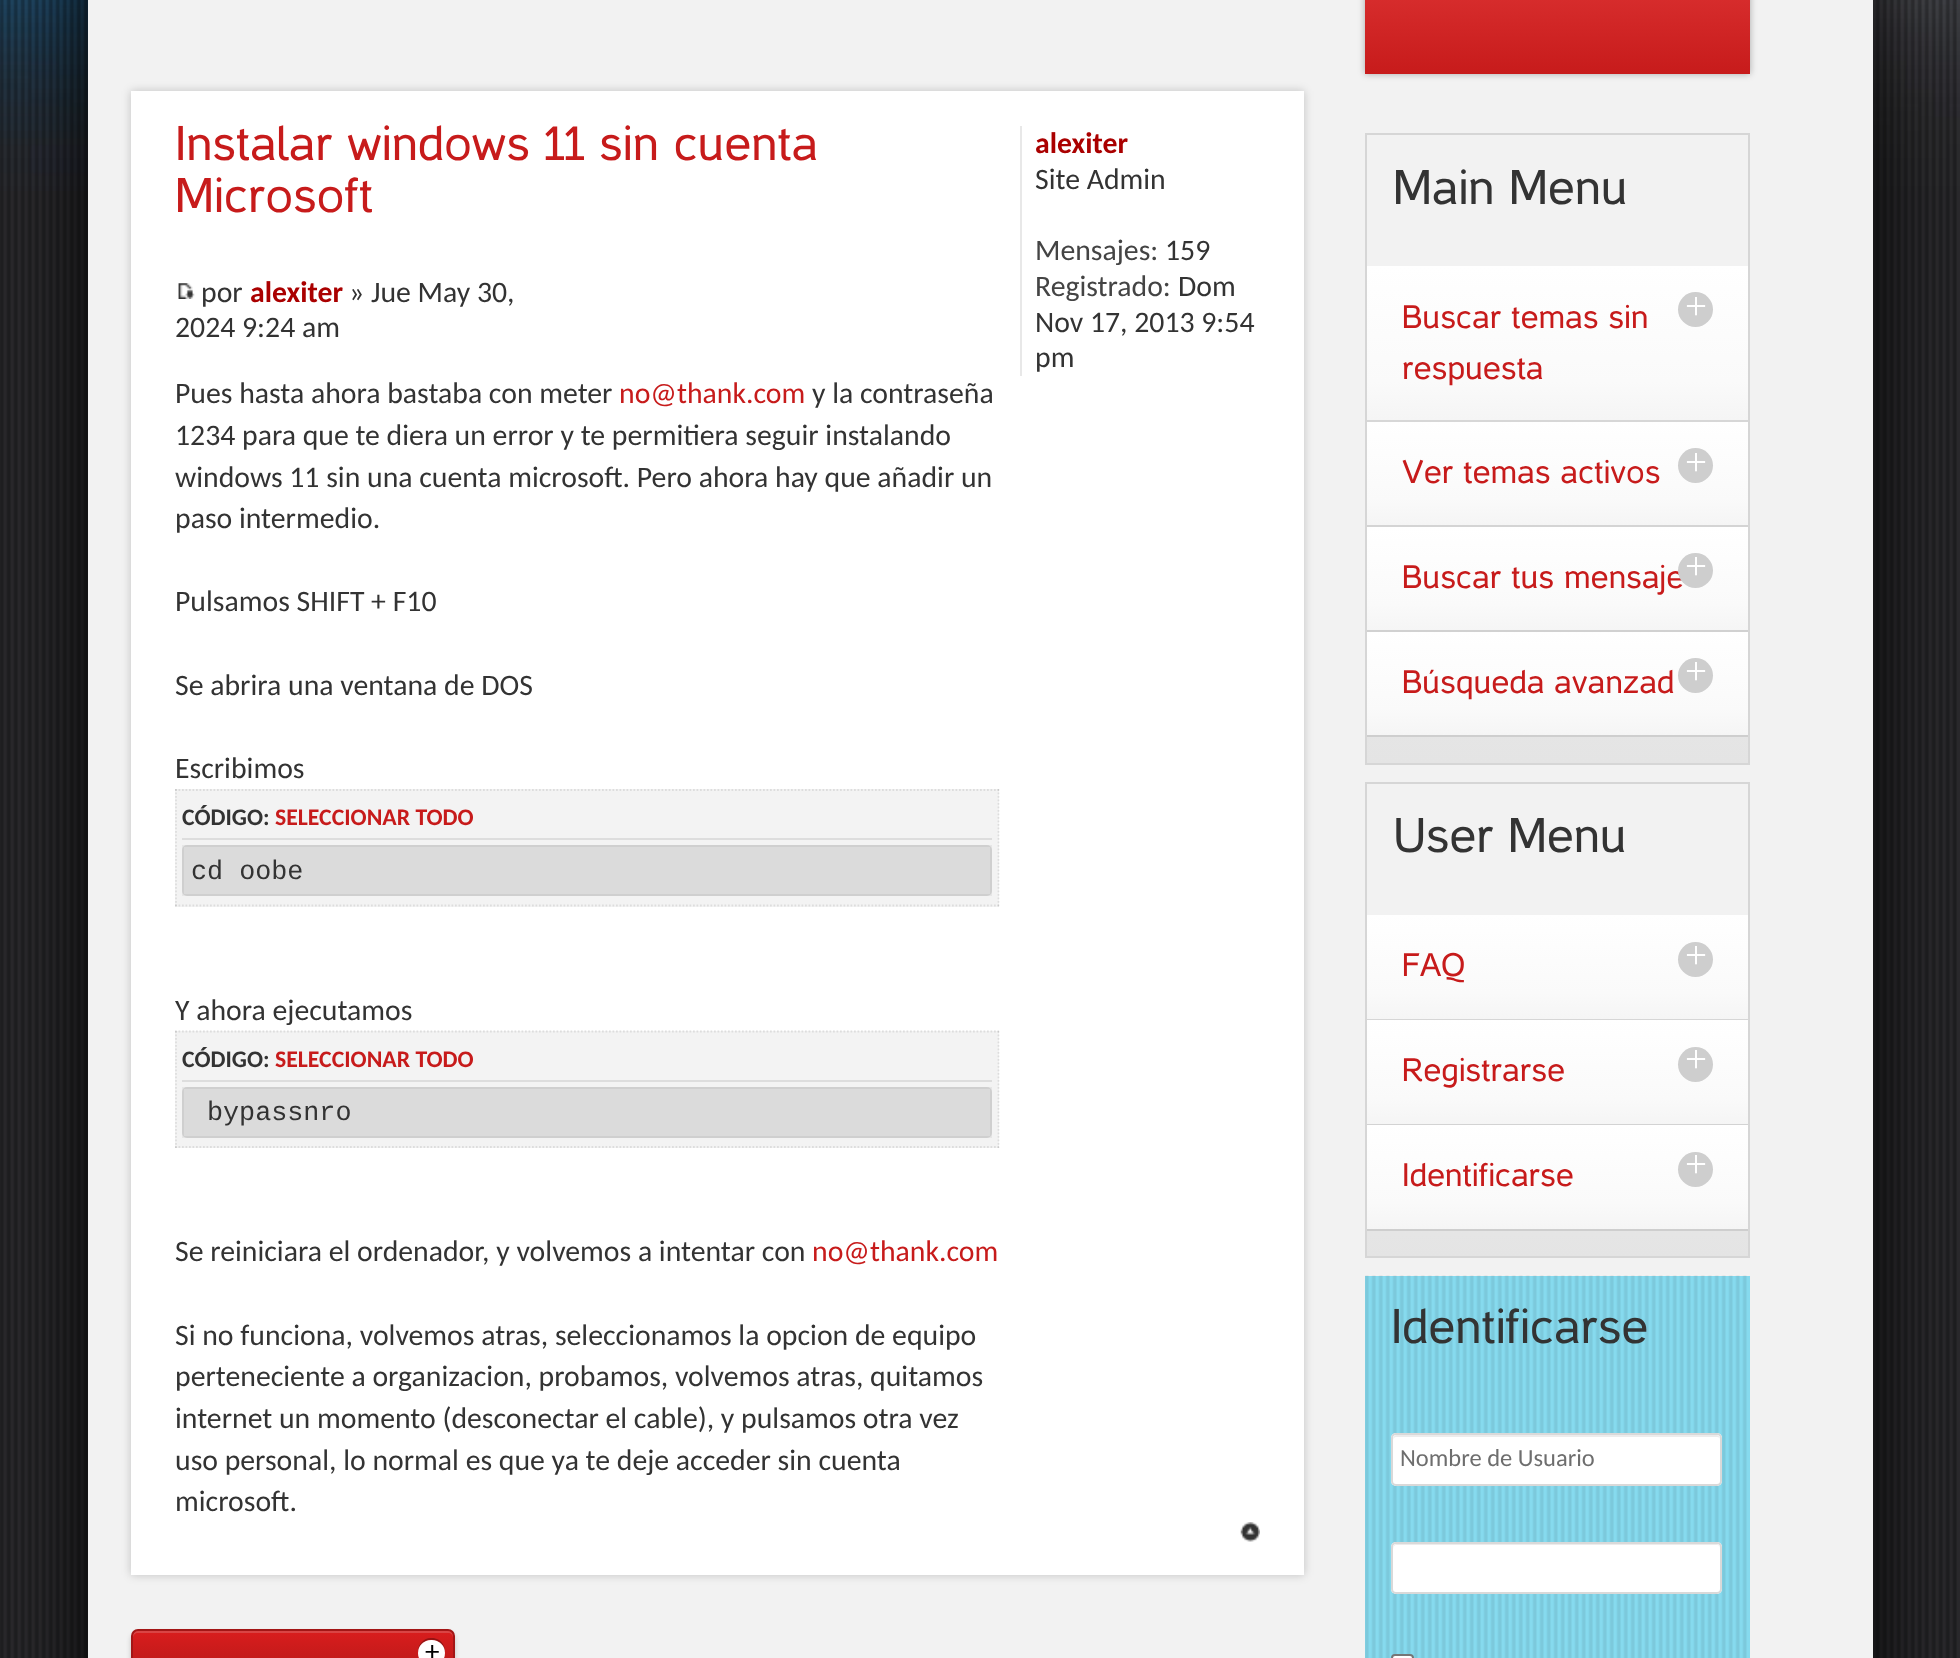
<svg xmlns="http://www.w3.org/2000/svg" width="1960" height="1658">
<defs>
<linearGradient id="g1" gradientUnits="userSpaceOnUse" x1="293" y1="1631" x2="293" y2="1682"><stop offset="0" stop-color="#d91d1d"/><stop offset="0.45" stop-color="#c71b1b"/><stop offset="1" stop-color="#b51919"/></linearGradient>
<linearGradient id="g2" gradientUnits="userSpaceOnUse" x1="1558" y1="-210" x2="1558" y2="74"><stop offset="0" stop-color="#ec7575"/><stop offset="0.5" stop-color="#e43b3b"/><stop offset="1" stop-color="#c71b1b"/></linearGradient>
<linearGradient id="g3" gradientUnits="userSpaceOnUse" x1="1558" y1="135" x2="1558" y2="763"><stop offset="0" stop-color="#f3f3f3"/><stop offset="0.25" stop-color="#f3f3f3"/><stop offset="1" stop-color="#e4e4e4"/></linearGradient>
<linearGradient id="g4" gradientUnits="userSpaceOnUse" x1="1558" y1="266" x2="1558" y2="420"><stop offset="0" stop-color="#fff"/><stop offset="0.75" stop-color="#fafafa"/><stop offset="1" stop-color="#f5f5f5"/></linearGradient>
<linearGradient id="g5" gradientUnits="userSpaceOnUse" x1="1558" y1="422" x2="1558" y2="525"><stop offset="0" stop-color="#fff"/><stop offset="0.75" stop-color="#fafafa"/><stop offset="1" stop-color="#f5f5f5"/></linearGradient>
<linearGradient id="g6" gradientUnits="userSpaceOnUse" x1="1558" y1="527" x2="1558" y2="630"><stop offset="0" stop-color="#fff"/><stop offset="0.75" stop-color="#fafafa"/><stop offset="1" stop-color="#f5f5f5"/></linearGradient>
<linearGradient id="g7" gradientUnits="userSpaceOnUse" x1="1558" y1="632" x2="1558" y2="735"><stop offset="0" stop-color="#fff"/><stop offset="0.75" stop-color="#fafafa"/><stop offset="1" stop-color="#f5f5f5"/></linearGradient>
<linearGradient id="g8" gradientUnits="userSpaceOnUse" x1="1558" y1="784" x2="1558" y2="1257"><stop offset="0" stop-color="#f3f3f3"/><stop offset="0.25" stop-color="#f3f3f3"/><stop offset="1" stop-color="#e4e4e4"/></linearGradient>
<linearGradient id="g9" gradientUnits="userSpaceOnUse" x1="1558" y1="915" x2="1558" y2="1019"><stop offset="0" stop-color="#fff"/><stop offset="0.75" stop-color="#fafafa"/><stop offset="1" stop-color="#f5f5f5"/></linearGradient>
<linearGradient id="g10" gradientUnits="userSpaceOnUse" x1="1558" y1="1020" x2="1558" y2="1124"><stop offset="0" stop-color="#fff"/><stop offset="0.75" stop-color="#fafafa"/><stop offset="1" stop-color="#f5f5f5"/></linearGradient>
<linearGradient id="g11" gradientUnits="userSpaceOnUse" x1="1558" y1="1125" x2="1558" y2="1229"><stop offset="0" stop-color="#fff"/><stop offset="0.75" stop-color="#fafafa"/><stop offset="1" stop-color="#f5f5f5"/></linearGradient>
</defs>
<rect width="100%" height="100%" fill="#29282b"/>
<image x="0" y="0" width="1960" height="191" href="media/1.png"/>
<image x="0" y="0" width="1957" height="1658" href="media/2.png"/>
<rect x="88" y="-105" width="1785" height="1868" fill="#000000e6" filter="blur(35px)"/>
<rect x="88" width="1785" height="1658" fill="#f2f2f2"/>
<rect x="131" y="91" width="1173" height="1484" fill="#00000033" filter="blur(5px)"/>
<rect x="131" y="91" width="1173" height="1484" fill="#fff"/>
<text x="175" y="160" style="font-family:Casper;font-size:49px;fill:#c71b1b">Instalar windows 11 sin cuenta</text>
<text x="175" y="212" style="font-family:Casper;font-size:49px;fill:#c71b1b">Microsoft</text>
<image x="178" y="283" width="17" height="16" href="media/3.png"/>
<text x="201" y="302" style="font-family:Carlito;font-size:29.75px;fill:#333">por</text>
<text x="250" y="302" style="font-family:Carlito;font-size:29.75px;font-weight:bold;fill:#a00">alexiter</text>
<text x="349" y="302" style="font-family:Carlito;font-size:29.75px;fill:#333">» Jue May 30,</text>
<text x="175" y="337" style="font-family:Carlito;font-size:29.75px;fill:#333">2024 9:24 am</text>
<text x="175" y="403" style="font-family:Carlito;font-size:29.75px;fill:#333">Pues hasta ahora bastaba con meter</text>
<text x="619" y="403" style="font-family:Carlito;font-size:29.75px;fill:#c71b1b">no@thank.com</text>
<text x="812" y="403" style="font-family:Carlito;font-size:29.75px;fill:#333">y la contraseña</text>
<text x="175" y="445" style="font-family:Carlito;font-size:29.75px;fill:#333">1234 para que te diera un error y te permitiera seguir instalando</text>
<text x="175" y="487" style="font-family:Carlito;font-size:29.75px;fill:#333">windows 11 sin una cuenta microsoft. Pero ahora hay que añadir un</text>
<text x="175" y="528" style="font-family:Carlito;font-size:29.75px;fill:#333">paso intermedio.</text>
<text x="175" y="611" style="font-family:Carlito;font-size:29.75px;fill:#333">Pulsamos SHIFT + F10</text>
<text x="175" y="695" style="font-family:Carlito;font-size:29.75px;fill:#333">Se abrira una ventana de DOS</text>
<text x="175" y="778" style="font-family:Carlito;font-size:29.75px;fill:#333">Escribimos</text>
<rect x="175" y="789" width="824" height="118" fill="#f3f3f3"/>
<path d="M175 790h824" fill="none" stroke="#ddd" stroke-width="1.8" stroke-dasharray="1.75 1.75"/>
<path d="M998.5 789v117.5" fill="none" stroke="#00000017" stroke-width="1.8" stroke-dasharray="1.75 1.75"/>
<path d="M175 905.5h824" fill="none" stroke="#00000017" stroke-width="1.8" stroke-dasharray="1.75 1.75"/>
<path d="M176 789v117.5" fill="none" stroke="#00000017" stroke-width="1.8" stroke-dasharray="1.75 1.75"/>
<rect x="182" y="838" width="810" height="2" fill="#ddd"/>
<text x="182" y="825" style="font-family:Carlito;font-size:23.75px;font-weight:bold;fill:#333">CÓDIGO:</text>
<text x="275" y="825" style="font-family:Carlito;font-size:23.75px;font-weight:bold;fill:#c71b1b">SELECCIONAR TODO</text>
<rect x="182" y="845" width="810" height="51" rx="5" fill="#dbdbdb"/>
<rect x="183" y="846" width="808" height="49" fill="none" stroke="#0000000d" stroke-width="2"/>
<text x="191" y="879" style="font-family:Liberation Mono;font-size:26.75px;fill:#333">cd oobe</text>
<text x="175" y="1020" style="font-family:Carlito;font-size:29.75px;fill:#333">Y ahora ejecutamos</text>
<rect x="175" y="1031" width="824" height="117" fill="#f3f3f3"/>
<path d="M175 1031.5h824" fill="none" stroke="#ddd" stroke-width="1.8" stroke-dasharray="1.75 1.75"/>
<path d="M998.5 1031v117" fill="none" stroke="#00000017" stroke-width="1.8" stroke-dasharray="1.75 1.75"/>
<path d="M175 1147h824" fill="none" stroke="#00000017" stroke-width="1.8" stroke-dasharray="1.75 1.75"/>
<path d="M176 1031v117" fill="none" stroke="#00000017" stroke-width="1.8" stroke-dasharray="1.75 1.75"/>
<rect x="182" y="1080" width="810" height="2" fill="#ddd"/>
<text x="182" y="1067" style="font-family:Carlito;font-size:23.75px;font-weight:bold;fill:#333">CÓDIGO:</text>
<text x="275" y="1067" style="font-family:Carlito;font-size:23.75px;font-weight:bold;fill:#c71b1b">SELECCIONAR TODO</text>
<rect x="182" y="1087" width="810" height="51" rx="5" fill="#dbdbdb"/>
<rect x="183" y="1088" width="808" height="49" fill="none" stroke="#0000000d" stroke-width="2"/>
<text x="207" y="1120" style="font-family:Liberation Mono;font-size:26.75px;fill:#333">bypassnro</text>
<text x="175" y="1261" style="font-family:Carlito;font-size:29.75px;fill:#333">Se reiniciara el ordenador, y volvemos a intentar con</text>
<text x="812" y="1261" style="font-family:Carlito;font-size:29.75px;fill:#c71b1b">no@thank.com</text>
<text x="175" y="1345" style="font-family:Carlito;font-size:29.75px;fill:#333">Si no funciona, volvemos atras, seleccionamos la opcion de equipo</text>
<text x="175" y="1386" style="font-family:Carlito;font-size:29.75px;fill:#333">perteneciente a organizacion, probamos, volvemos atras, quitamos</text>
<text x="175" y="1428" style="font-family:Carlito;font-size:29.75px;fill:#333">internet un momento (desconectar el cable), y pulsamos otra vez</text>
<text x="175" y="1470" style="font-family:Carlito;font-size:29.75px;fill:#333">uso personal, lo normal es que ya te deje acceder sin cuenta</text>
<text x="175" y="1511" style="font-family:Carlito;font-size:29.75px;fill:#333">microsoft.</text>
<rect x="1020" y="126" width="2" height="250" fill="#e8e8e8"/>
<text x="1035" y="153" style="font-family:Carlito;font-size:29.75px;font-weight:bold;fill:#a00">alexiter</text>
<text x="1035" y="189" style="font-family:Carlito;font-size:29.75px;fill:#333">Site Admin</text>
<text x="1035" y="260" style="font-family:Carlito;font-size:29.75px;fill:#444">Mensajes:</text>
<text x="1165" y="260" style="font-family:Carlito;font-size:29.75px;fill:#333">159</text>
<text x="1035" y="296" style="font-family:Carlito;font-size:29.75px;fill:#444">Registrado:</text>
<text x="1178" y="296" style="font-family:Carlito;font-size:29.75px;fill:#333">Dom</text>
<text x="1035" y="332" style="font-family:Carlito;font-size:29.75px;fill:#333">Nov 17, 2013 9:54</text>
<text x="1035" y="367" style="font-family:Carlito;font-size:29.75px;fill:#333">pm</text>
<image x="1240" y="1522" width="20" height="20" href="media/4.png"/>
<rect x="131" y="1633" width="324" height="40" rx="7" fill="#00000033" filter="blur(2.5px)"/>
<rect x="133" y="1631" width="320" height="27" fill="url(#g1)"/>
<path d="M138 1633h310c3 0 5 2 5 5v-2c0-3-2-5-5-5h-310c-3 0-5 2-5 5v2c0-3 2-5 5-5z" fill="#e1e1e133"/>
<rect x="132" y="1630" width="322" height="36" rx="6" fill="none" stroke="#a31616" stroke-width="2"/>
<path d="M431 1638c-8 0-14.5 8-12.5 15.5c-.5-2.5 .5-5.5 2-8c8-12 26.5-4 24 10c2.5-8.5-3.5-17.5-12.5-17.5z" fill="#0000004d"/>
<rect x="418" y="1640" width="27" height="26" rx="13" fill="#fff"/>
<text x="425" y="1661" style="font-family:Carlito;font-size:29px;fill:#000">+</text>
<rect x="1365" y="-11" width="385" height="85" fill="#0000004d" filter="blur(3.5px)"/>
<rect x="1365" width="385" height="74" fill="url(#g2)"/>
<rect x="1367" y="402" width="381" height="361" fill="url(#g3)"/>
<rect x="1366" y="134" width="383" height="630" fill="none" stroke="#d6d6d6" stroke-width="2"/>
<text x="1393" y="204" style="font-family:Casper;font-size:49px;fill:#333">Main Menu</text>
<rect x="1367" y="420" width="381" height="2" fill="#d7d7d7"/>
<rect x="1367" y="266" width="381" height="154" fill="url(#g4)"/>
<text x="1402" y="328" style="font-family:Casper;font-size:32.75px;fill:#c71b1b">Buscar temas sin</text>
<circle cx="1695.5" cy="309.5" r="17.5" fill="#cecece"/>
<text x="1685" y="319" style="font-family:Liberation Serif;font-size:39px;fill:#fff">+</text>
<text x="1402" y="379" style="font-family:Casper;font-size:32.75px;fill:#c71b1b">respuesta</text>
<rect x="1367" y="525" width="381" height="2" fill="#d4d4d4"/>
<rect x="1367" y="422" width="381" height="103" fill="url(#g5)"/>
<text x="1402" y="483" style="font-family:Casper;font-size:32.75px;fill:#c71b1b">Ver temas activos</text>
<circle cx="1695.5" cy="465.5" r="17.5" fill="#cecece"/>
<text x="1685" y="475" style="font-family:Liberation Serif;font-size:39px;fill:#fff">+</text>
<rect x="1367" y="630" width="381" height="2" fill="#d1d1d1"/>
<rect x="1367" y="527" width="381" height="103" fill="url(#g6)"/>
<text x="1402" y="588" style="font-family:Casper;font-size:32.75px;fill:#c71b1b">Buscar tus mensaje</text>
<circle cx="1695.5" cy="570.5" r="17.5" fill="#cecece"/>
<text x="1685" y="579" style="font-family:Liberation Serif;font-size:39px;fill:#fff">+</text>
<rect x="1367" y="735" width="381" height="2" fill="#cecece"/>
<rect x="1367" y="632" width="381" height="103" fill="url(#g7)"/>
<text x="1402" y="693" style="font-family:Casper;font-size:32.75px;fill:#c71b1b">Búsqueda avanzad</text>
<circle cx="1695.5" cy="675.5" r="17.5" fill="#cecece"/>
<text x="1685" y="684" style="font-family:Liberation Serif;font-size:39px;fill:#fff">+</text>
<rect x="1367" y="985" width="381" height="271" fill="url(#g8)"/>
<rect x="1366" y="783" width="383" height="474" fill="none" stroke="#d6d6d6" stroke-width="2"/>
<text x="1393" y="852" style="font-family:Casper;font-size:49px;fill:#333">User Menu</text>
<rect x="1367" y="1019" width="381" height="1" fill="#d6d6d6"/>
<rect x="1367" y="915" width="381" height="104" fill="url(#g9)"/>
<text x="1402" y="976" style="font-family:Casper;font-size:32.75px;fill:#c71b1b">FAQ</text>
<circle cx="1695.5" cy="959.5" r="17.5" fill="#cecece"/>
<text x="1685" y="968" style="font-family:Liberation Serif;font-size:39px;fill:#fff">+</text>
<rect x="1367" y="1124" width="381" height="1" fill="#d3d3d3"/>
<rect x="1367" y="1020" width="381" height="104" fill="url(#g10)"/>
<text x="1402" y="1081" style="font-family:Casper;font-size:32.75px;fill:#c71b1b">Registrarse</text>
<circle cx="1695.5" cy="1064.5" r="17.5" fill="#cecece"/>
<text x="1685" y="1072" style="font-family:Liberation Serif;font-size:39px;fill:#fff">+</text>
<rect x="1367" y="1229" width="381" height="2" fill="#cecece"/>
<rect x="1367" y="1125" width="381" height="104" fill="url(#g11)"/>
<text x="1402" y="1186" style="font-family:Casper;font-size:32.75px;fill:#c71b1b">Identificarse</text>
<circle cx="1695.5" cy="1169.5" r="17.5" fill="#cecece"/>
<text x="1685" y="1177" style="font-family:Liberation Serif;font-size:39px;fill:#fff">+</text>
<rect x="1365" y="1276" width="385" height="382" fill="#86daee"/>
<image x="1365" y="1275" width="382" height="383" href="media/5.png"/>
<text x="1391" y="1343" style="font-family:Casper;font-size:49px;fill:#333">Identificarse</text>
<rect x="1391" y="1433" width="331" height="53" rx="5" fill="#fff"/>
<path d="M1396 1437h321c2 0 3 1 3 3v-1c0-2-2-4-4-4h-319c-2 0-4 2-4 4v1c0-2 2-3 3-3z" fill="#ececec"/>
<rect x="1392" y="1434" width="329" height="51" rx="4" fill="none" stroke="#d9d9d9" stroke-width="2"/>
<text x="1400" y="1466" style="font-family:Carlito;font-size:24.5px;fill:#6e6e6e">Nombre de Usuario</text>
<rect x="1391" y="1542" width="331" height="52" rx="5" fill="#fff"/>
<path d="M1396 1545h321c2 0 3 2 3 4v-1c0-2-2-4-4-4h-319c-2 0-4 2-4 4v1c0-2 2-4 3-4z" fill="#ececec"/>
<rect x="1392" y="1543" width="329" height="50" rx="4" fill="none" stroke="#d9d9d9" stroke-width="2"/>
<rect x="1392" y="1655" width="21" height="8" rx="3" fill="#fff" stroke="#767676" stroke-width="2"/>
</svg>
